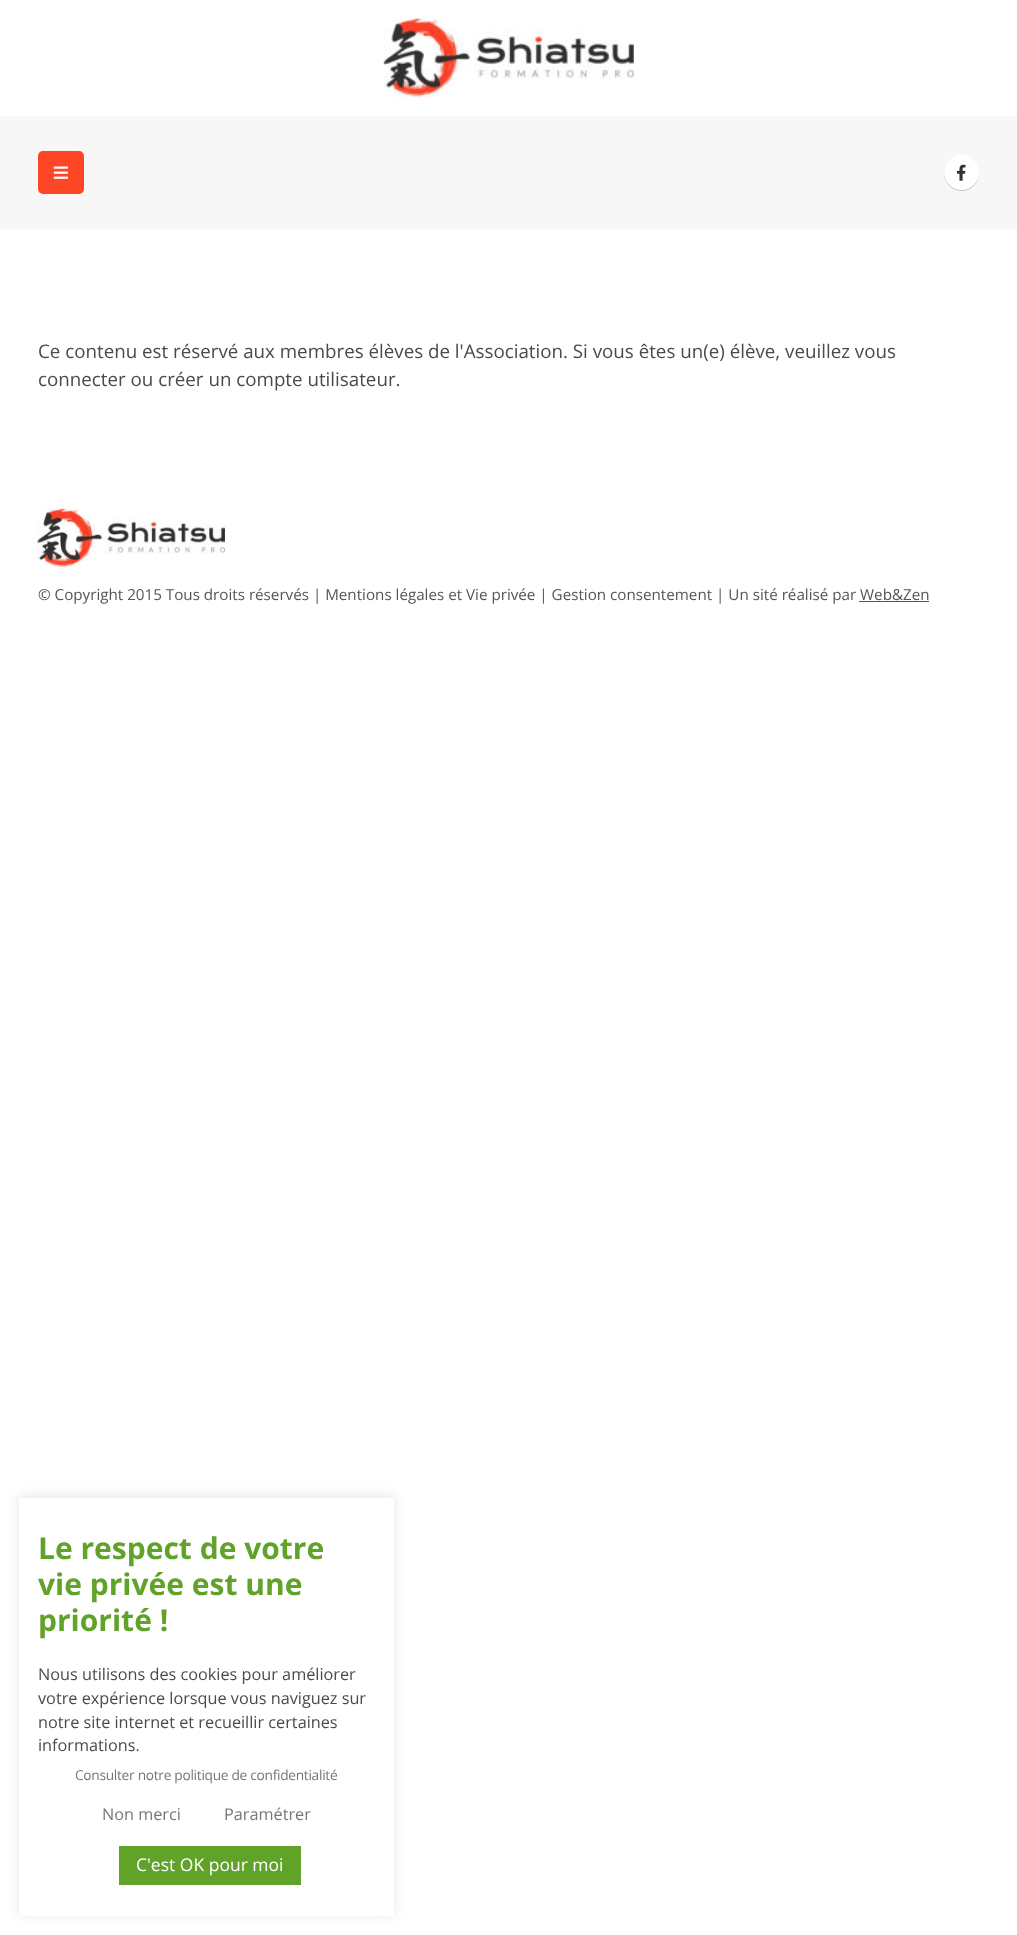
<svg xmlns="http://www.w3.org/2000/svg" width="1017" height="1935">
<rect width="100%" height="100%" fill="#fff"/>
<image x="383" y="18" width="251" height="80" href="media/1.png"/>
<rect y="116" width="1017" height="113" fill="#f7f7f7"/>
<rect x="38" y="151" width="46" height="43" rx="5" fill="#fd4626"/>
<image x="53" y="166" width="15" height="13" href="media/2.png"/>
<rect x="944" y="156" width="35" height="35" rx="17.5" fill="#00000033" filter="blur(0.5px)"/>
<circle cx="961.5" cy="172.5" r="17.5" fill="#fff"/>
<image x="956" y="164" width="10" height="17" href="media/3.png"/>
<text x="38" y="358" style="font-family:Open Sans;font-size:18.75px;fill:#4a4a4a">Ce contenu est réservé aux membres élèves de l'Association. Si vous êtes un(e) élève, veuillez vous</text>
<text x="38" y="386" style="font-family:Open Sans;font-size:18.75px;fill:#4a4a4a">connecter ou créer un compte utilisateur.</text>
<image x="37" y="508" width="188" height="60" href="media/4.png"/>
<text x="38" y="600" style="font-family:Open Sans;font-size:15.2px;fill:#555">© Copyright 2015 Tous droits réservés | Mentions légales et Vie privée | Gestion consentement | Un sité réalisé par Web&amp;Zen</text>
<rect x="859" y="601" width="70" height="1" fill="#555"/>
<rect x="19" y="1496" width="375" height="419" fill="#acabab4d" filter="blur(6px)"/>
<rect x="19" y="1498" width="375" height="418" fill="#fff"/>
<text x="38" y="1559" style="font-family:Open Sans;font-size:30px;font-weight:bold;fill:#61a229">Le respect de votre</text>
<text x="38" y="1595" style="font-family:Open Sans;font-size:30px;font-weight:bold;fill:#61a229">vie privée est une</text>
<text x="38" y="1631" style="font-family:Open Sans;font-size:30px;font-weight:bold;fill:#61a229">priorité !</text>
<text x="38" y="1680" style="font-family:Open Sans;font-size:16.25px;fill:#4a4a4a">Nous utilisons des cookies pour améliorer</text>
<text x="38" y="1704" style="font-family:Open Sans;font-size:16.25px;fill:#4a4a4a">votre expérience lorsque vous naviguez sur</text>
<text x="38" y="1728" style="font-family:Open Sans;font-size:16.25px;fill:#4a4a4a">notre site internet et recueillir certaines</text>
<text x="38" y="1751" style="font-family:Open Sans;font-size:16.25px;fill:#4a4a4a">informations.</text>
<text x="75" y="1780" style="font-family:Open Sans;font-size:13.75px;letter-spacing:-0.3px;fill:#777">Consulter notre politique de confidentialité</text>
<text x="102" y="1820" style="font-family:Open Sans;font-size:16.25px;fill:#777">Non merci</text>
<text x="224" y="1820" style="font-family:Open Sans;font-size:16.25px;fill:#777">Paramétrer</text>
<rect x="119" y="1846" width="182" height="39" fill="#61a229"/>
<text x="136" y="1871" style="font-family:Open Sans;font-size:17.5px;fill:#fff">C'est OK pour moi</text>
</svg>
